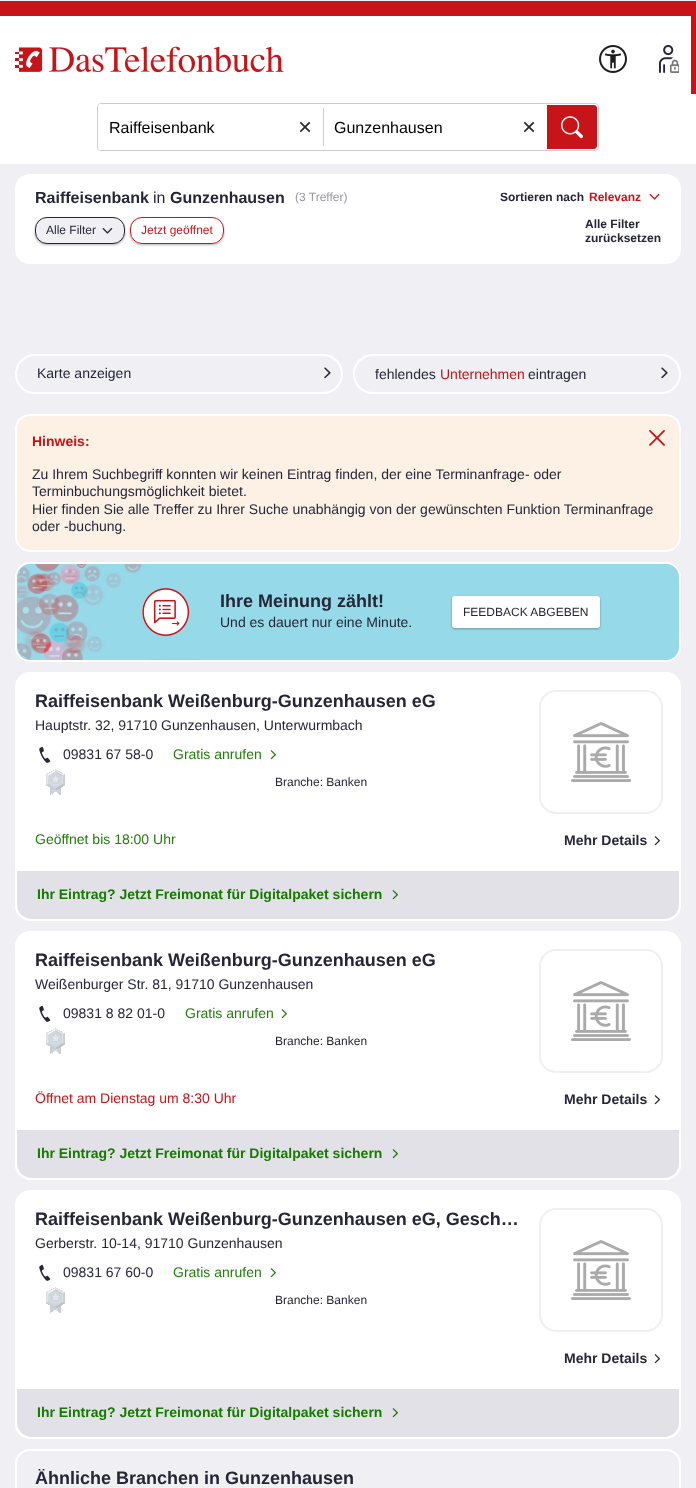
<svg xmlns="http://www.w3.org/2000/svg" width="696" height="1488">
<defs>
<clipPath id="clip1"><path d="M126 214h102v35h-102zm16 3h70c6.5 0 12 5.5 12 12v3c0 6.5-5.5 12-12 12h-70c-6.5 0-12-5.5-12-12v-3c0-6.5 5.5-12 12-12z" clip-rule="evenodd"/></clipPath>
<clipPath id="clip2"><rect x="35" y="1469" width="319" height="18"/></clipPath>
</defs>
<rect width="100%" height="100%" fill="#efeff4"/>
<rect y="16" width="696" height="148" fill="#fff"/>
<rect y="1" width="696" height="15" fill="#c71418"/>
<image x="15" y="46" width="269" height="27" href="media/1.png"/>
<image x="599" y="45" width="28" height="28" href="media/2.png"/>
<image x="659" y="45" width="20" height="28" href="media/3.png"/>
<rect x="691" y="14" width="5" height="80" fill="#c71418"/>
<rect x="97.5" y="103.5" width="501" height="47" rx="3.5" fill="none" stroke="#ccccd4"/>
<rect x="98" y="104" width="500" height="46" rx="3" fill="#fff"/>
<text x="109" y="133" style="font-family:Liberation Sans;font-size:16px;fill:#000">Raiffeisenbank</text>
<text x="298" y="135" style="font-family:Liberation Sans;font-size:24px;fill:#262637">×</text>
<rect x="323" y="108" width="1" height="38" fill="#ccccd4"/>
<text x="334" y="133" style="font-family:Liberation Sans;font-size:16px;fill:#000">Gunzenhausen</text>
<text x="522" y="135" style="font-family:Liberation Sans;font-size:24px;fill:#262637">×</text>
<path d="M547 105h47c1.5 0 3 1.5 3 3v38c0 1.5-1.5 3-3 3h-47z" fill="#c71418"/>
<image x="561" y="116" width="22" height="23" href="media/4.png"/>
<rect x="15" y="189" width="666" height="60" fill="#fff"/>
<path d="M30 174h636c8.5 0 15 6.5 15 15h-666c0-8.5 6.5-15 15-15z" fill="#fff"/>
<text x="35" y="203" style="font-family:Liberation Sans;font-size:16px;font-weight:bold;fill:#262637">Raiffeisenbank</text>
<text x="153" y="203" style="font-family:Liberation Sans;font-size:16px;fill:#262637">in</text>
<text x="170" y="203" style="font-family:Liberation Sans;font-size:16px;font-weight:bold;fill:#262637">Gunzenhausen</text>
<text x="295" y="201" style="font-family:Liberation Sans;font-size:12px;fill:#9999a3">(3 Treffer)</text>
<text x="500" y="201" style="font-family:Liberation Sans;font-size:12px;font-weight:bold;fill:#262637">Sortieren nach</text>
<text x="589" y="201" style="font-family:Liberation Sans;font-size:12px;font-weight:bold;fill:#c71418">Relevanz</text>
<image x="649" y="193" width="11" height="7" href="media/5.png"/>
<rect x="35" y="218" width="90" height="27" rx="12" fill="#0000004d" filter="blur(1px)"/>
<rect x="35.5" y="217.5" width="89" height="26" rx="11.5" fill="#efeff4" stroke="#262637"/>
<text x="46" y="234" style="font-family:Liberation Sans;font-size:12px;fill:#262637">Alle Filter</text>
<image x="102" y="228" width="11" height="6" href="media/6.png"/>
<g clip-path="url(#clip1)">
<rect x="130" y="218" width="94" height="27" rx="12" fill="#0000004d" filter="blur(1px)"/>
</g>
<rect x="130.5" y="217.5" width="93" height="26" rx="11.5" fill="none" stroke="#c71418"/>
<text x="141" y="234" style="font-family:Liberation Sans;font-size:12px;fill:#c71418">Jetzt geöffnet</text>
<text x="585" y="228" style="font-family:Liberation Sans;font-size:12px;font-weight:bold;fill:#262637">Alle Filter</text>
<text x="585" y="242" style="font-family:Liberation Sans;font-size:12px;font-weight:bold;fill:#262637">zurücksetzen</text>
<path d="M15 249h666c0 8.5-6.5 15-15 15h-636c-8.5 0-15-6.5-15-15z" fill="#fff"/>
<rect x="16" y="355" width="326" height="38" rx="19" fill="none" stroke="#fff" stroke-width="2"/>
<text x="37" y="378" style="font-family:Liberation Sans;font-size:14px;fill:#262637">Karte anzeigen</text>
<image x="324" y="367" width="7" height="12" href="media/7.png"/>
<rect x="354" y="355" width="326" height="38" rx="19" fill="none" stroke="#fff" stroke-width="2"/>
<text x="375" y="379" style="font-family:Liberation Sans;font-size:14px;fill:#262637">fehlendes</text>
<text x="440" y="379" style="font-family:Liberation Sans;font-size:14px;fill:#c71418">Unternehmen</text>
<text x="528" y="379" style="font-family:Liberation Sans;font-size:14px;fill:#262637">eintragen</text>
<image x="661" y="367" width="7" height="12" href="media/7.png"/>
<rect x="16" y="415" width="664" height="136" rx="14" fill="#fdf1e6" stroke="#fff" stroke-width="2"/>
<text x="32" y="446" style="font-family:Liberation Sans;font-size:14px;font-weight:bold;fill:#c71418">Hinweis:</text>
<image x="649" y="430" width="16" height="16" href="media/8.png"/>
<text x="32" y="479" style="font-family:Liberation Sans;font-size:14px;fill:#262637">Zu Ihrem Suchbegriff konnten wir keinen Eintrag finden, der eine Terminanfrage- oder</text>
<text x="32" y="496" style="font-family:Liberation Sans;font-size:14px;fill:#262637">Terminbuchungsmöglichkeit bietet.</text>
<text x="32" y="514" style="font-family:Liberation Sans;font-size:14px;fill:#262637">Hier finden Sie alle Treffer zu Ihrer Suche unabhängig von der gewünschten Funktion Terminanfrage</text>
<text x="32" y="531" style="font-family:Liberation Sans;font-size:14px;fill:#262637">oder -buchung.</text>
<rect x="16" y="563" width="664" height="98" rx="14" fill="#96daea" stroke="#fff" stroke-width="2"/>
<image x="17" y="564" width="182" height="96" href="media/9.png"/>
<image x="142" y="588" width="48" height="48" href="media/10.png"/>
<text x="220" y="607" style="font-family:Liberation Sans;font-size:18px;font-weight:bold;fill:#262637">Ihre Meinung zählt!</text>
<text x="220" y="627" style="font-family:Liberation Sans;font-size:14px;fill:#262637">Und es dauert nur eine Minute.</text>
<rect x="452" y="597" width="148" height="32" rx="3" fill="#0000004d" filter="blur(1px)"/>
<rect x="452" y="596" width="148" height="32" rx="3" fill="#fff"/>
<text x="463" y="616" style="font-family:Liberation Sans;font-size:12px;fill:#262637">FEEDBACK ABGEBEN</text>
<rect x="15" y="672" width="666" height="249" rx="15" fill="#fff"/>
<text x="35" y="707" style="font-family:Liberation Sans;font-size:18px;font-weight:bold;fill:#262637">Raiffeisenbank Weißenburg-Gunzenhausen eG</text>
<text x="35" y="730" style="font-family:Liberation Sans;font-size:14px;fill:#262637">Hauptstr. 32, 91710 Gunzenhausen, Unterwurmbach</text>
<image x="39" y="746" width="12" height="17" href="media/11.png"/>
<text x="63" y="759" style="font-family:Liberation Sans;font-size:14px;fill:#262637">09831 67 58-0</text>
<text x="173" y="759" style="font-family:Liberation Sans;font-size:14px;fill:#237d0d">Gratis anrufen</text>
<image x="270" y="750" width="6" height="10" href="media/12.png"/>
<image x="46" y="769" width="19" height="26" href="media/13.png"/>
<text x="275" y="786" style="font-family:Liberation Sans;font-size:12px;fill:#262637">Branche: Banken</text>
<rect x="540" y="691" width="122" height="122" rx="16" fill="none" stroke="#efeff4" stroke-width="2"/>
<image x="571" y="722" width="60" height="60" href="media/14.png"/>
<text x="35" y="844" style="font-family:Liberation Sans;font-size:14px;fill:#237d0d">Geöffnet bis 18:00 Uhr</text>
<text x="564" y="845" style="font-family:Liberation Sans;font-size:14px;font-weight:bold;fill:#262637">Mehr Details</text>
<image x="654" y="836" width="6" height="10" href="media/15.png"/>
<path d="M17 871h662v33c0 8.5-6.5 15-15 15h-632c-8.5 0-15-6.5-15-15z" fill="#e1e1e7"/>
<text x="37" y="899" style="font-family:Liberation Sans;font-size:14px;font-weight:bold;fill:#177b00">Ihr Eintrag? Jetzt Freimonat für Digitalpaket sichern</text>
<image x="392" y="890" width="6" height="10" href="media/16.png"/>
<rect x="15" y="931" width="666" height="249" rx="15" fill="#fff"/>
<text x="35" y="966" style="font-family:Liberation Sans;font-size:18px;font-weight:bold;fill:#262637">Raiffeisenbank Weißenburg-Gunzenhausen eG</text>
<text x="35" y="989" style="font-family:Liberation Sans;font-size:14px;fill:#262637">Weißenburger Str. 81, 91710 Gunzenhausen</text>
<image x="39" y="1005" width="12" height="17" href="media/11.png"/>
<text x="63" y="1018" style="font-family:Liberation Sans;font-size:14px;fill:#262637">09831 8 82 01-0</text>
<text x="185" y="1018" style="font-family:Liberation Sans;font-size:14px;fill:#237d0d">Gratis anrufen</text>
<image x="281" y="1009" width="6" height="10" href="media/12.png"/>
<image x="46" y="1028" width="19" height="26" href="media/13.png"/>
<text x="275" y="1045" style="font-family:Liberation Sans;font-size:12px;fill:#262637">Branche: Banken</text>
<rect x="540" y="950" width="122" height="122" rx="16" fill="none" stroke="#efeff4" stroke-width="2"/>
<image x="571" y="981" width="60" height="60" href="media/14.png"/>
<text x="35" y="1103" style="font-family:Liberation Sans;font-size:14px;fill:#c71418">Öffnet am Dienstag um 8:30 Uhr</text>
<text x="564" y="1104" style="font-family:Liberation Sans;font-size:14px;font-weight:bold;fill:#262637">Mehr Details</text>
<image x="654" y="1095" width="6" height="10" href="media/15.png"/>
<path d="M17 1130h662v33c0 8.5-6.5 15-15 15h-632c-8.5 0-15-6.5-15-15z" fill="#e1e1e7"/>
<text x="37" y="1158" style="font-family:Liberation Sans;font-size:14px;font-weight:bold;fill:#177b00">Ihr Eintrag? Jetzt Freimonat für Digitalpaket sichern</text>
<image x="392" y="1149" width="6" height="10" href="media/16.png"/>
<rect x="15" y="1190" width="666" height="249" rx="15" fill="#fff"/>
<text x="35" y="1225" style="font-family:Liberation Sans;font-size:18px;font-weight:bold;fill:#262637">Raiffeisenbank Weißenburg-Gunzenhausen eG, Gesch…</text>
<text x="35" y="1248" style="font-family:Liberation Sans;font-size:14px;fill:#262637">Gerberstr. 10-14, 91710 Gunzenhausen</text>
<image x="39" y="1264" width="12" height="17" href="media/11.png"/>
<text x="63" y="1277" style="font-family:Liberation Sans;font-size:14px;fill:#262637">09831 67 60-0</text>
<text x="173" y="1277" style="font-family:Liberation Sans;font-size:14px;fill:#237d0d">Gratis anrufen</text>
<image x="270" y="1268" width="6" height="10" href="media/12.png"/>
<image x="46" y="1287" width="19" height="26" href="media/13.png"/>
<text x="275" y="1304" style="font-family:Liberation Sans;font-size:12px;fill:#262637">Branche: Banken</text>
<rect x="540" y="1209" width="122" height="122" rx="16" fill="none" stroke="#efeff4" stroke-width="2"/>
<image x="571" y="1240" width="60" height="60" href="media/14.png"/>
<text x="564" y="1363" style="font-family:Liberation Sans;font-size:14px;font-weight:bold;fill:#262637">Mehr Details</text>
<image x="654" y="1354" width="6" height="10" href="media/15.png"/>
<path d="M17 1389h662v33c0 8.5-6.5 15-15 15h-632c-8.5 0-15-6.5-15-15z" fill="#e1e1e7"/>
<text x="37" y="1417" style="font-family:Liberation Sans;font-size:14px;font-weight:bold;fill:#177b00">Ihr Eintrag? Jetzt Freimonat für Digitalpaket sichern</text>
<image x="392" y="1408" width="6" height="10" href="media/16.png"/>
<rect x="16" y="1450" width="664" height="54" rx="14" fill="none" stroke="#fff" stroke-width="2"/>
<g clip-path="url(#clip2)">
<text x="35" y="1484" style="font-family:Liberation Sans;font-size:18px;font-weight:bold;fill:#262637">Ähnliche Branchen in Gunzenhausen</text>
</g>
</svg>
